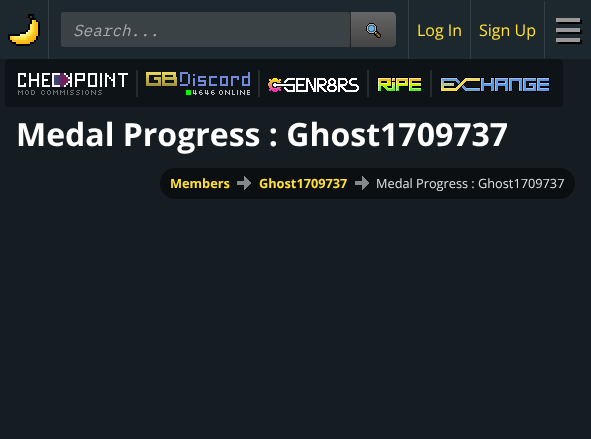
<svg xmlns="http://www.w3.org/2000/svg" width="591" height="439">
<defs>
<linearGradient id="g1" gradientUnits="userSpaceOnUse" x1="374" y1="12" x2="374" y2="47"><stop offset="0" stop-color="#666"/><stop offset="1" stop-color="#444"/></linearGradient>
<linearGradient id="g2" gradientUnits="userSpaceOnUse" x1="374" y1="12" x2="374" y2="47"><stop offset="0" stop-color="#333"/><stop offset="1" stop-color="#222"/></linearGradient>
</defs>
<rect width="100%" height="100%" fill="#151d23"/>
<rect width="591" height="59" fill="#1c272e"/>
<image x="8" y="14" width="32" height="32" href="media/1.png"/>
<rect x="48" width="1" height="59" fill="#333d43"/>
<rect x="61" y="12" width="289" height="35" rx="2" fill="#3a4246"/>
<text x="73" y="36" style="font-family:IBM Plex Mono;font-size:16px;font-style:italic;fill:#a6aaac">Search...</text>
<path d="M350 12h42c2 0 4 2 4 4v27c0 2-2 4-4 4h-42z" fill="url(#g1)"/>
<rect x="350" y="12" width="1" height="35" fill="url(#g2)"/>
<image x="366" y="23" width="15" height="15" href="media/2.png"/>
<rect x="408" width="1" height="59" fill="#333d43"/>
<text x="417" y="36" style="font-family:Open Sans;font-size:16px;fill:#ffe033">Log In</text>
<rect x="470" width="1" height="59" fill="#333d43"/>
<text x="479" y="36" style="font-family:Open Sans;font-size:16px;fill:#ffe033">Sign Up</text>
<rect x="544" y="1" width="1" height="57" fill="#333d43"/>
<image x="556" y="18" width="26" height="26" href="media/3.png"/>
<text x="16" y="146" style="font-family:Open Sans;font-size:32px;font-weight:bold;fill:#fff">Medal Progress : Ghost1709737</text>
<rect x="160" y="168" width="415" height="31" rx="15.5" fill="#0b0f12"/>
<text x="170" y="188" style="font-family:Open Sans;font-size:12.75px;font-weight:bold;fill:#ffe033">Members</text>
<image x="237" y="176" width="14" height="14" href="media/4.png"/>
<text x="259" y="188" style="font-family:Open Sans;font-size:12.75px;font-weight:bold;fill:#ffe033">Ghost1709737</text>
<image x="355" y="176" width="14" height="14" href="media/4.png"/>
<text x="376" y="188" style="font-family:Open Sans;font-size:12.75px;fill:#e2e2e2">Medal Progress : Ghost1709737</text>
<rect x="5" y="59" width="558" height="48" rx="4" fill="#0e1317"/>
<image x="18" y="73" width="110" height="22" href="media/5.png"/>
<rect x="136" y="70" width="2" height="27" fill="#262b2e"/>
<image x="146" y="72" width="104" height="14" href="media/6.png"/>
<rect x="186" y="90" width="5" height="5" fill="#00ff03"/>
<image x="193" y="90" width="4" height="5" href="media/7.png"/>
<image x="199" y="90" width="4" height="5" href="media/8.png"/>
<image x="205" y="90" width="4" height="5" href="media/7.png"/>
<image x="211" y="90" width="4" height="5" href="media/8.png"/>
<image x="219" y="90" width="31" height="5" href="media/9.png"/>
<rect x="258" y="70" width="2" height="27" fill="#262b2e"/>
<image x="268" y="78" width="91" height="14" href="media/10.png"/>
<rect x="367" y="70" width="2" height="27" fill="#262b2e"/>
<image x="377" y="77" width="45" height="15" href="media/11.png"/>
<rect x="430" y="70" width="2" height="27" fill="#262b2e"/>
<image x="440" y="77" width="110" height="15" href="media/12.png"/>
</svg>
